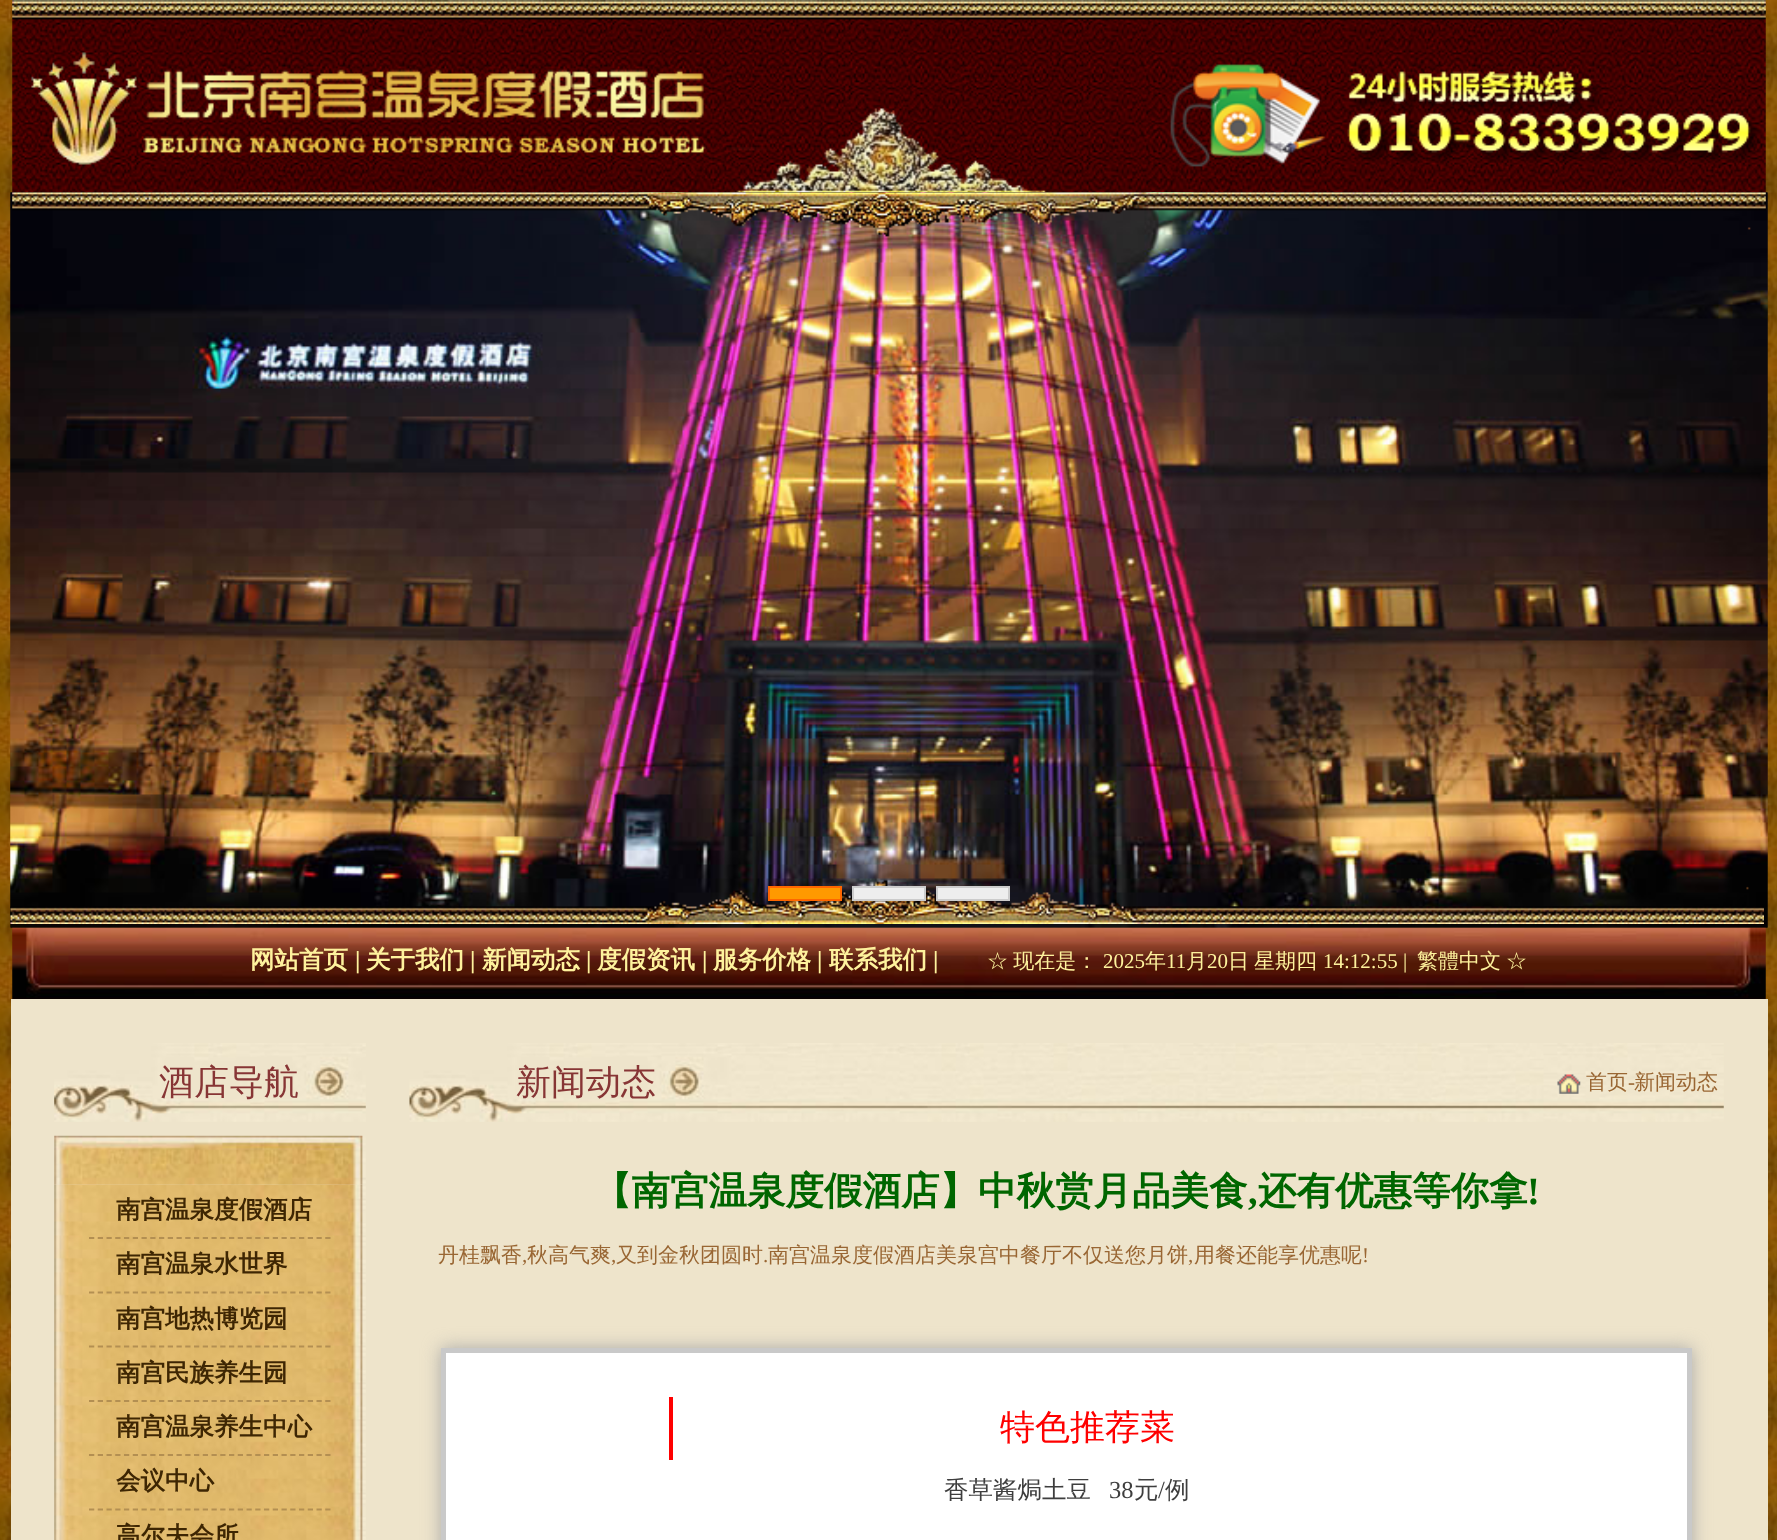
<svg xmlns="http://www.w3.org/2000/svg" width="1777" height="1540">
<rect width="100%" height="100%" fill="#fff"/>
<image x="0" y="0" width="1777" height="1540" href="media/1.png"/>
<image x="12" y="0" width="1754" height="193" href="media/2.png"/>
<image x="10" y="192" width="1758" height="736" href="media/4.png"/>
<image x="12" y="927" width="1754" height="72" href="media/7.png"/>
<image x="10" y="192" width="1758" height="736" href="media/5.png"/>
<image x="12" y="192" width="1754" height="45" href="media/3.png"/>
<image x="10" y="879" width="1754" height="45" href="media/6.png"/>
<rect x="769" y="887" width="72" height="13" fill="#f90" stroke="#f60" stroke-width="2"/>
<rect x="853" y="887" width="72" height="13" fill="#eee" stroke="#ccc" stroke-width="2"/>
<rect x="937" y="887" width="72" height="13" fill="#eee" stroke="#ccc" stroke-width="2"/>
<text x="250" y="968" style="font-family:WenQuanYi Zen Hei;font-size:24.5px;font-weight:bold;fill:#fef29d">网站首页</text>
<text x="355" y="968" style="font-family:Liberation Serif;font-size:24.5px;font-weight:bold;fill:#fef29d">|</text>
<text x="366" y="968" style="font-family:WenQuanYi Zen Hei;font-size:24.5px;font-weight:bold;fill:#fef29d">关于我们</text>
<text x="470" y="968" style="font-family:Liberation Serif;font-size:24.5px;font-weight:bold;fill:#fef29d">|</text>
<text x="482" y="968" style="font-family:WenQuanYi Zen Hei;font-size:24.5px;font-weight:bold;fill:#fef29d">新闻动态</text>
<text x="586" y="968" style="font-family:Liberation Serif;font-size:24.5px;font-weight:bold;fill:#fef29d">|</text>
<text x="597" y="968" style="font-family:WenQuanYi Zen Hei;font-size:24.5px;font-weight:bold;fill:#fef29d">度假资讯</text>
<text x="702" y="968" style="font-family:Liberation Serif;font-size:24.5px;font-weight:bold;fill:#fef29d">|</text>
<text x="713" y="968" style="font-family:WenQuanYi Zen Hei;font-size:24.5px;font-weight:bold;fill:#fef29d">服务价格</text>
<text x="817" y="968" style="font-family:Liberation Serif;font-size:24.5px;font-weight:bold;fill:#fef29d">|</text>
<text x="829" y="968" style="font-family:WenQuanYi Zen Hei;font-size:24.5px;font-weight:bold;fill:#fef29d">联系我们</text>
<text x="933" y="968" style="font-family:Liberation Serif;font-size:24.5px;font-weight:bold;fill:#fef29d">|</text>
<text x="987" y="968" word-spacing="-1" style="font-family:WenQuanYi Zen Hei;font-size:21px;font-weight:500;fill:#fef29d">☆ 现在是：</text>
<text x="1103" y="968" style="font-family:Liberation Serif;font-size:21px;fill:#fef29d">2025</text>
<text x="1145" y="968" style="font-family:WenQuanYi Zen Hei;font-size:21px;font-weight:500;fill:#fef29d">年</text>
<text x="1166" y="968" style="font-family:Liberation Serif;font-size:21px;fill:#fef29d">11</text>
<text x="1186" y="968" style="font-family:WenQuanYi Zen Hei;font-size:21px;font-weight:500;fill:#fef29d">月</text>
<text x="1207" y="968" style="font-family:Liberation Serif;font-size:21px;fill:#fef29d">20</text>
<text x="1228" y="968" style="font-family:WenQuanYi Zen Hei;font-size:21px;font-weight:500;fill:#fef29d">日</text>
<text x="1254" y="968" style="font-family:WenQuanYi Zen Hei;font-size:21px;font-weight:500;fill:#fef29d">星期四</text>
<text x="1323" y="968" style="font-family:Liberation Serif;font-size:21px;fill:#fef29d">14:12:55 |</text>
<text x="1417" y="968" style="font-family:WenQuanYi Zen Hei;font-size:21px;font-weight:500;fill:#fef29d">繁體中文</text>
<text x="1506" y="968" style="font-family:WenQuanYi Zen Hei;font-size:21px;font-weight:500;fill:#fef29d">☆</text>
<rect x="11" y="999" width="1757" height="541" fill="#eee4cb"/>
<image x="54" y="1043" width="312" height="79" href="media/8.png"/>
<text x="159" y="1094" style="font-family:WenQuanYi Zen Hei;font-size:35px;font-weight:500;fill:#873535">酒店导航</text>
<image x="54" y="1184" width="312" height="356" href="media/10.png"/>
<image x="54" y="1135" width="312" height="50" href="media/9.png"/>
<path d="M89 1238h242" fill="none" stroke="#b38f52" stroke-width="1.8" stroke-dasharray="5.25 3.5"/>
<text x="116" y="1218" style="font-family:WenQuanYi Zen Hei;font-size:24.5px;font-weight:bold;fill:#3e2603">南宫温泉度假酒店</text>
<path d="M89 1292.5h242" fill="none" stroke="#b38f52" stroke-width="1.8" stroke-dasharray="5.25 3.5"/>
<text x="116" y="1272" style="font-family:WenQuanYi Zen Hei;font-size:24.5px;font-weight:bold;fill:#3e2603">南宫温泉水世界</text>
<path d="M89 1346.5h242" fill="none" stroke="#b38f52" stroke-width="1.8" stroke-dasharray="5.25 3.5"/>
<text x="116" y="1327" style="font-family:WenQuanYi Zen Hei;font-size:24.5px;font-weight:bold;fill:#3e2603">南宫地热博览园</text>
<path d="M89 1401h242" fill="none" stroke="#b38f52" stroke-width="1.8" stroke-dasharray="5.25 3.5"/>
<text x="116" y="1381" style="font-family:WenQuanYi Zen Hei;font-size:24.5px;font-weight:bold;fill:#3e2603">南宫民族养生园</text>
<path d="M89 1455h242" fill="none" stroke="#b38f52" stroke-width="1.8" stroke-dasharray="5.25 3.5"/>
<text x="116" y="1435" style="font-family:WenQuanYi Zen Hei;font-size:24.5px;font-weight:bold;fill:#3e2603">南宫温泉养生中心</text>
<path d="M89 1509.5h242" fill="none" stroke="#b38f52" stroke-width="1.8" stroke-dasharray="5.25 3.5"/>
<text x="116" y="1489" style="font-family:WenQuanYi Zen Hei;font-size:24.5px;font-weight:bold;fill:#3e2603">会议中心</text>
<text x="116" y="1544" style="font-family:WenQuanYi Zen Hei;font-size:24.5px;font-weight:bold;fill:#3e2603">高尔夫会所</text>
<image x="409" y="1043" width="1315" height="79" href="media/11.png"/>
<text x="516" y="1094" style="font-family:WenQuanYi Zen Hei;font-size:35px;font-weight:500;fill:#873535">新闻动态</text>
<image x="1557" y="1074" width="24" height="20" href="media/12.png"/>
<text x="1586" y="1089" style="font-family:WenQuanYi Zen Hei;font-size:21px;font-weight:500;fill:#963">首页</text>
<text x="1628" y="1089" style="font-family:Liberation Serif;font-size:21px;fill:#963">-</text>
<text x="1634" y="1089" style="font-family:WenQuanYi Zen Hei;font-size:21px;font-weight:500;fill:#963">新闻动态</text>
<text x="593" y="1204" style="font-family:WenQuanYi Zen Hei;font-size:38.5px;font-weight:bold;fill:#060">【南宫温泉度假酒店】中秋赏月品美食</text>
<text x="1248" y="1204" style="font-family:Liberation Serif;font-size:38.5px;font-weight:bold;fill:#060">,</text>
<text x="1258" y="1204" style="font-family:WenQuanYi Zen Hei;font-size:38.5px;font-weight:bold;fill:#060">还有优惠等你拿</text>
<text x="1527" y="1204" style="font-family:Liberation Serif;font-size:38.5px;font-weight:bold;fill:#060">!</text>
<text x="438" y="1262" style="font-family:WenQuanYi Zen Hei;font-size:21px;font-weight:500;fill:#963">丹桂飘香</text>
<text x="522" y="1262" style="font-family:Liberation Serif;font-size:21px;fill:#963">,</text>
<text x="527" y="1262" style="font-family:WenQuanYi Zen Hei;font-size:21px;font-weight:500;fill:#963">秋高气爽</text>
<text x="611" y="1262" style="font-family:Liberation Serif;font-size:21px;fill:#963">,</text>
<text x="616" y="1262" style="font-family:WenQuanYi Zen Hei;font-size:21px;font-weight:500;fill:#963">又到金秋团圆时</text>
<text x="763" y="1262" style="font-family:Liberation Serif;font-size:21px;fill:#963">.</text>
<text x="768" y="1262" style="font-family:WenQuanYi Zen Hei;font-size:21px;font-weight:500;fill:#963">南宫温泉度假酒店美泉宫中餐厅不仅送您月饼</text>
<text x="1188" y="1262" style="font-family:Liberation Serif;font-size:21px;fill:#963">,</text>
<text x="1194" y="1262" style="font-family:WenQuanYi Zen Hei;font-size:21px;font-weight:500;fill:#963">用餐还能享优惠呢</text>
<text x="1362" y="1262" style="font-family:Liberation Serif;font-size:21px;fill:#963">!</text>
<rect x="441" y="1348" width="1251" height="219" fill="#aaa" filter="blur(9px)"/>
<rect x="443.5" y="1350.5" width="1246" height="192" fill="#fff" stroke="#c9c9c9" stroke-width="5"/>
<rect x="669" y="1397" width="4" height="63" fill="#f00"/>
<text x="1000" y="1439" style="font-family:WenQuanYi Zen Hei;font-size:35px;font-weight:500;fill:#f00">特色推荐菜</text>
<text x="944" y="1498" style="font-family:WenQuanYi Zen Hei;font-size:24.5px;font-weight:500;fill:#3e3e3e">香草酱焗土豆</text>
<text x="1109" y="1498" style="font-family:Liberation Serif;font-size:24.5px;fill:#3e3e3e">38</text>
<text x="1134" y="1498" style="font-family:WenQuanYi Zen Hei;font-size:24.5px;font-weight:500;fill:#3e3e3e">元</text>
<text x="1158" y="1498" style="font-family:Liberation Serif;font-size:24.5px;fill:#3e3e3e">/</text>
<text x="1165" y="1498" style="font-family:WenQuanYi Zen Hei;font-size:24.5px;font-weight:500;fill:#3e3e3e">例</text>
</svg>
